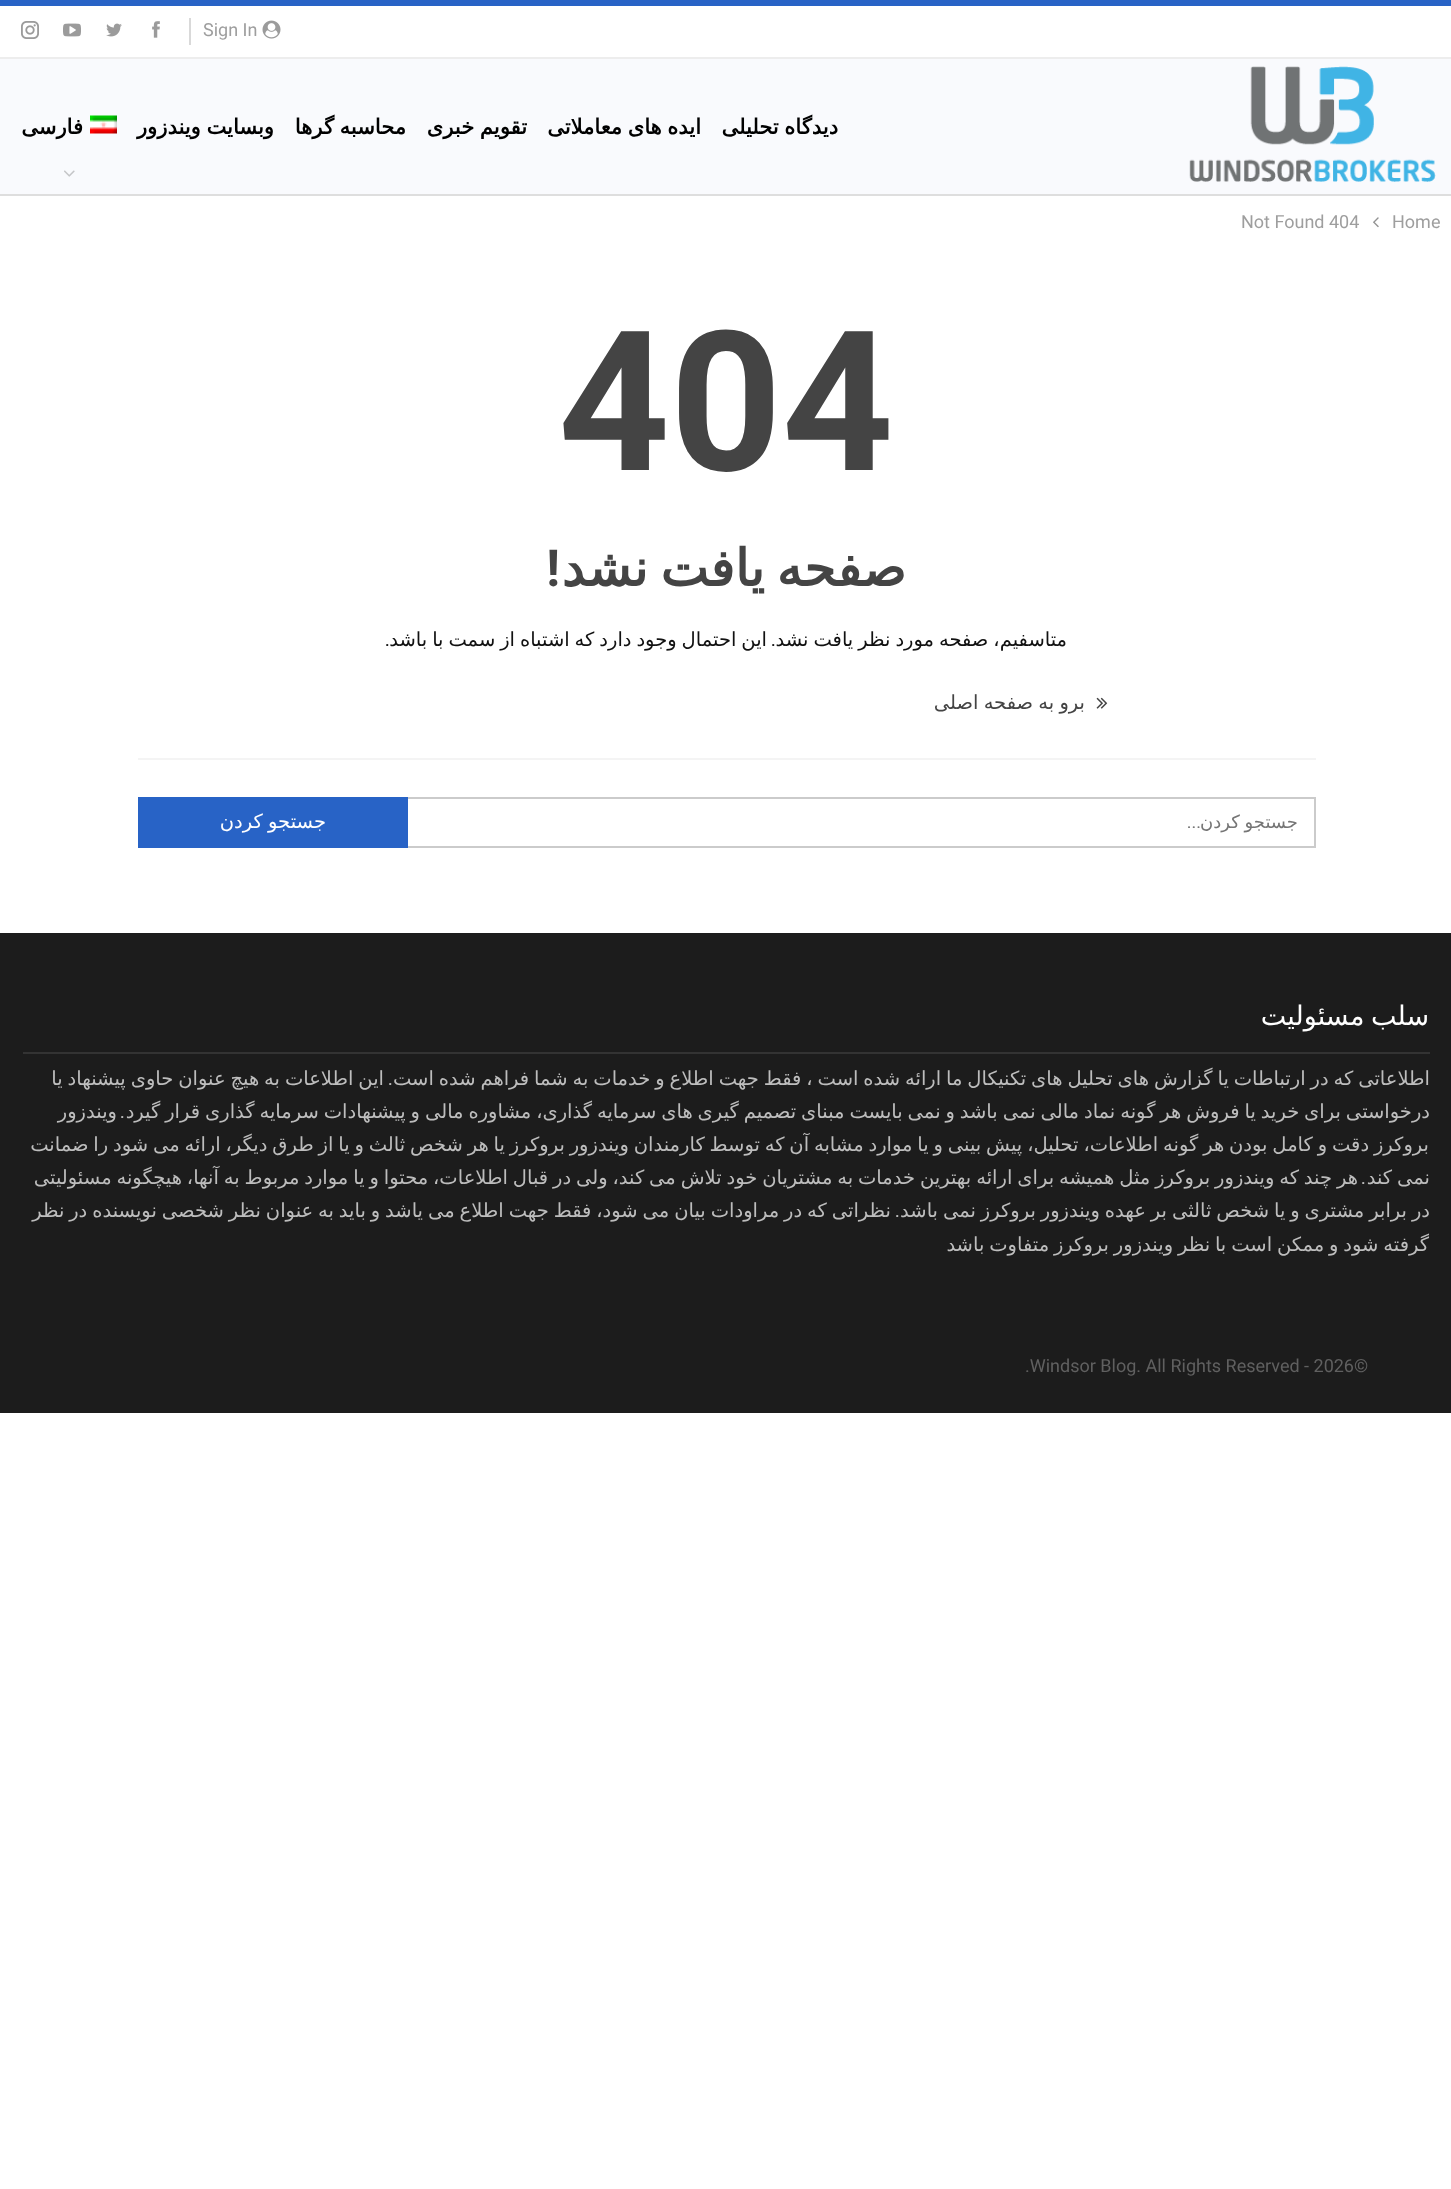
<svg xmlns="http://www.w3.org/2000/svg" width="1451" height="2189">
<rect width="100%" height="100%" fill="#fff"/>
<rect width="1451" height="6" fill="#2863c6"/>
<rect y="194" width="1451" height="2" fill="#dedede"/>
<rect y="57" width="1451" height="2" fill="#ededed"/>
<image x="262" y="20" width="19" height="19" href="media/1.png"/>
<text x="203" y="36" style="font-family:Roboto;font-size:18px;fill:#9e9e9e">Sign In</text>
<rect x="189" y="18" width="2" height="27" fill="#d9d9d9"/>
<image x="152" y="21" width="8" height="17" href="media/2.png"/>
<image x="106" y="23" width="16" height="14" href="media/3.png"/>
<image x="63" y="23" width="18" height="14" href="media/4.png"/>
<image x="21" y="21" width="18" height="18" href="media/5.png"/>
<rect y="59" width="1451" height="135" fill="#f9fafd"/>
<image x="1189" y="66" width="247" height="116" href="media/6.png"/>
<text x="838" y="134" word-spacing="-1" style="font-family:DejaVu Sans;font-size:21px;font-weight:bold;direction:rtl;fill:#000">دیدگاه تحلیلی</text>
<text x="701" y="134" word-spacing="-1" style="font-family:DejaVu Sans;font-size:21px;font-weight:bold;direction:rtl;fill:#000">ایده های معاملاتی</text>
<text x="527" y="134" word-spacing="-1" style="font-family:DejaVu Sans;font-size:21px;font-weight:bold;direction:rtl;fill:#000">تقویم خبری</text>
<text x="406" y="134" word-spacing="-1" style="font-family:DejaVu Sans;font-size:21px;font-weight:bold;direction:rtl;fill:#000">محاسبه گرها</text>
<text x="274" y="134" word-spacing="-1" style="font-family:DejaVu Sans;font-size:21px;font-weight:bold;direction:rtl;fill:#000">وبسایت ویندزور</text>
<image x="90" y="115" width="27" height="19" href="media/7.png"/>
<text x="83" y="134" style="font-family:DejaVu Sans;font-size:21px;font-weight:bold;direction:rtl;fill:#000">فارسی</text>
<image x="64" y="170" width="11" height="7" href="media/8.png"/>
<text x="1392" y="228" style="font-family:Roboto;font-size:18px;fill:#9e9e9e">Home</text>
<image x="1373" y="217" width="6" height="11" href="media/9.png"/>
<text x="1241" y="228" style="font-family:Roboto;font-size:18px;fill:#9e9e9e">Not Found 404</text>
<text x="558" y="470" style="font-family:Roboto;font-size:195px;font-weight:bold;fill:#444">404</text>
<text x="906" y="586" word-spacing="-4" style="font-family:DejaVu Sans;font-size:51px;font-weight:bold;direction:rtl;fill:#444">صفحه یافت نشد</text>
<text x="560" y="586" style="font-family:Roboto;font-size:51px;font-weight:bold;direction:rtl;fill:#444">!</text>
<text x="1067" y="646" word-spacing="-1.25" style="font-family:DejaVu Sans;font-size:19.5px;direction:rtl;fill:#111">متاسفیم، صفحه مورد نظر یافت نشد</text>
<text x="776" y="646" style="font-family:Roboto;font-size:19.5px;direction:rtl;fill:#111">.</text>
<text x="767" y="646" word-spacing="-1.25" style="font-family:DejaVu Sans;font-size:19.5px;direction:rtl;fill:#111">این احتمال وجود دارد که اشتباه از سمت با باشد</text>
<text x="390" y="646" style="font-family:Roboto;font-size:19.5px;direction:rtl;fill:#111">.</text>
<image x="1096" y="697" width="12" height="12" href="media/10.png"/>
<text x="1085" y="709" word-spacing="-1" style="font-family:DejaVu Sans;font-size:19.5px;direction:rtl;fill:#444">برو به صفحه اصلی</text>
<rect x="138" y="758" width="1178" height="2" fill="#f4f4f4"/>
<rect x="139" y="798" width="1176" height="49" fill="none" stroke="#cbcbcb" stroke-width="2"/>
<text x="1298" y="828" word-spacing="-1" style="font-family:DejaVu Sans;font-size:18px;direction:rtl;fill:#757575">جستجو کردن</text>
<text x="1201" y="828" style="font-family:Roboto;font-size:18px;direction:rtl;fill:#757575">...</text>
<rect x="138" y="797" width="270" height="51" fill="#2863c6"/>
<text x="326" y="828" word-spacing="-1" style="font-family:DejaVu Sans;font-size:19.5px;direction:rtl;fill:#fff">جستجو کردن</text>
<rect y="933" width="1451" height="480" fill="#1c1c1c"/>
<text x="1429" y="1025" word-spacing="-2" style="font-family:DejaVu Sans;font-size:27px;direction:rtl;fill:#fff">سلب مسئولیت</text>
<rect x="23" y="1052" width="1407" height="2" fill="#333"/>
<text x="1430" y="1085" word-spacing="-1.3" style="font-family:DejaVu Sans;font-size:19.5px;direction:rtl;fill:#bdbdbd">اطلاعاتی که در ارتباطات یا گزارش های تحلیل های تکنیکال ما ارائه شده است ، فقط جهت اطلاع و خدمات به شما فراهم شده است</text>
<text x="393" y="1085" style="font-family:Roboto;font-size:19.5px;direction:rtl;fill:#bdbdbd">.</text>
<text x="384" y="1085" word-spacing="-1.3" style="font-family:DejaVu Sans;font-size:19.5px;direction:rtl;fill:#bdbdbd">این اطلاعات به هیچ عنوان حاوی پیشنهاد یا</text>
<text x="1430" y="1118" word-spacing="-1.3" style="font-family:DejaVu Sans;font-size:19.5px;direction:rtl;fill:#bdbdbd">درخواستی برای خرید یا فروش هر گونه نماد مالی نمی باشد و نمی بایست مبنای تصمیم گیری های سرمایه گذاری، مشاوره مالی و پیشنهادات سرمایه گذاری قرار گیرد</text>
<text x="125" y="1118" style="font-family:Roboto;font-size:19.5px;direction:rtl;fill:#bdbdbd">.</text>
<text x="117" y="1118" style="font-family:DejaVu Sans;font-size:19.5px;direction:rtl;fill:#bdbdbd">ویندزور</text>
<text x="1429" y="1151" word-spacing="-1.35" style="font-family:DejaVu Sans;font-size:19.5px;direction:rtl;fill:#bdbdbd">بروکرز دقت و کامل بودن هر گونه اطلاعات، تحلیل، پیش بینی و یا موارد مشابه آن که توسط کارمندان ویندزور بروکرز یا هر شخص ثالث و یا از طرق دیگر، ارائه می شود را ضمانت</text>
<text x="1430" y="1184" word-spacing="-1.3" style="font-family:DejaVu Sans;font-size:19.5px;direction:rtl;fill:#bdbdbd">نمی کند</text>
<text x="1366" y="1184" style="font-family:Roboto;font-size:19.5px;direction:rtl;fill:#bdbdbd">.</text>
<text x="1358" y="1184" word-spacing="-1.3" style="font-family:DejaVu Sans;font-size:19.5px;direction:rtl;fill:#bdbdbd">هر چند که ویندزور بروکرز مثل همیشه برای ارائه بهترین خدمات به مشتریان خود تلاش می کند، ولی در قبال اطلاعات، محتوا و یا موارد مربوط به آنها، هیچگونه مسئولیتی</text>
<text x="1430" y="1217" word-spacing="-1.3" style="font-family:DejaVu Sans;font-size:19.5px;direction:rtl;fill:#bdbdbd">در برابر مشتری و یا شخص ثالثی بر عهده ویندزور بروکرز نمی باشد</text>
<text x="900" y="1217" style="font-family:Roboto;font-size:19.5px;direction:rtl;fill:#bdbdbd">.</text>
<text x="891" y="1217" word-spacing="-1.3" style="font-family:DejaVu Sans;font-size:19.5px;direction:rtl;fill:#bdbdbd">نظراتی که در مراودات بیان می شود، فقط جهت اطلاع می یاشد و باید به عنوان نظر شخصی نویسنده در نظر</text>
<text x="1429" y="1251" word-spacing="-1.35" style="font-family:DejaVu Sans;font-size:19.5px;direction:rtl;fill:#bdbdbd">گرفته شود و ممکن است با نظر ویندزور بروکرز متفاوت باشد</text>
<text x="1025" y="1372" style="font-family:Roboto;font-size:18px;fill:#606060">.Windsor Blog. All Rights Reserved - 2026©</text>
</svg>
